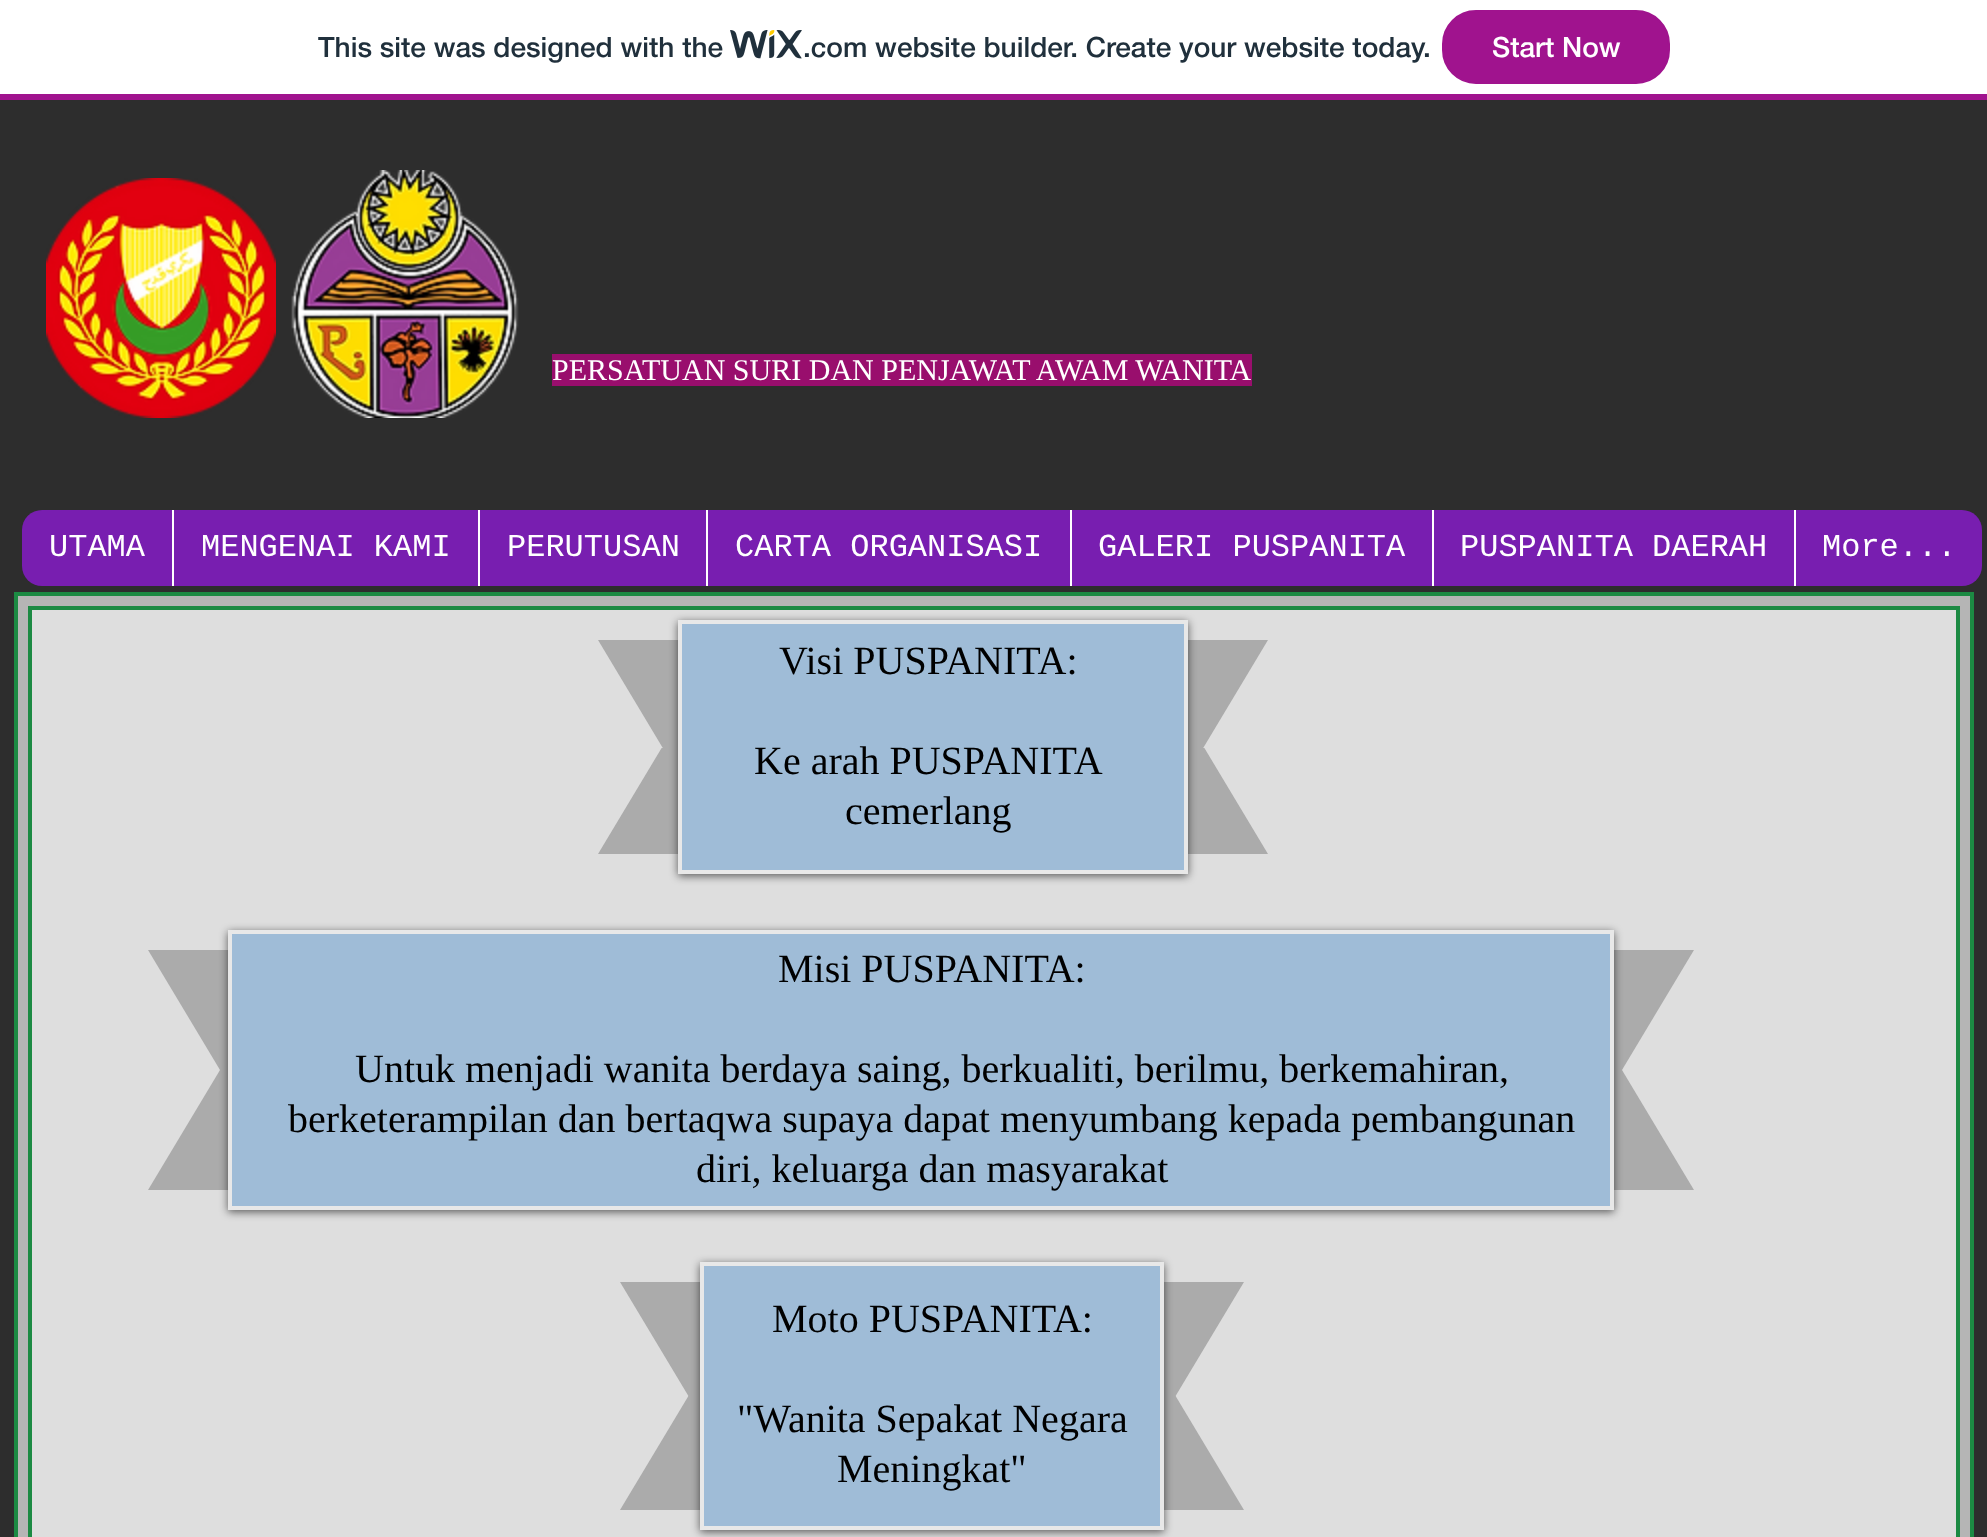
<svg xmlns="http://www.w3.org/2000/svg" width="1987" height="1537">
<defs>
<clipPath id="clip1"><rect x="598" y="748" width="670" height="106"/></clipPath>
<clipPath id="clip2"><rect x="148" y="1070" width="1546" height="120"/></clipPath>
<clipPath id="clip3"><rect x="620" y="1396" width="624" height="114"/></clipPath>
</defs>
<rect width="100%" height="100%" fill="#fff"/>
<rect y="94" width="1987" height="6" fill="#a0138e"/>
<text x="318" y="57" style="font-family:'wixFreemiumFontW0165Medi';font-size:28px;font-weight:500;fill:#20303c">This site was designed with the</text>
<image x="730" y="30" width="72" height="29" href="media/1.png"/>
<text x="803" y="57" style="font-family:'wixFreemiumFontW0165Medi';font-size:28px;font-weight:500;fill:#20303c">.com website builder. Create your website today.</text>
<rect x="1443" y="11" width="226" height="72" rx="33" fill="#a0138e" stroke="#a0138e" stroke-width="2"/>
<text x="1492" y="57" style="font-family:'wixFreemiumFontW0165Medi';font-size:28px;font-weight:500;fill:#fff">Start Now</text>
<rect y="100" width="1987" height="1437" fill="#2d2d2d"/>
<image x="46" y="178" width="230" height="240" href="media/2.png"/>
<image x="291" y="170" width="228" height="248" href="media/3.png"/>
<rect x="552" y="354" width="700" height="32" fill="#990e6d"/>
<text x="552" y="380" style="font-family:Liberation Serif;font-size:30px;fill:#fff">PERSATUAN SURI DAN PENJAWAT AWAM WANITA</text>
<rect x="22" y="510" width="1960" height="76" rx="20" fill="#781eb0"/>
<text x="49" y="556" style="font-family:Liberation Mono;font-size:32px;fill:#fff">UTAMA</text>
<rect x="172" y="510" width="2" height="76" fill="#fff"/>
<text x="201" y="556" style="font-family:Liberation Mono;font-size:32px;fill:#fff">MENGENAI KAMI</text>
<rect x="478" y="510" width="2" height="76" fill="#fff"/>
<text x="507" y="556" style="font-family:Liberation Mono;font-size:32px;fill:#fff">PERUTUSAN</text>
<rect x="706" y="510" width="2" height="76" fill="#fff"/>
<text x="735" y="556" style="font-family:Liberation Mono;font-size:32px;fill:#fff">CARTA ORGANISASI</text>
<rect x="1070" y="510" width="2" height="76" fill="#fff"/>
<text x="1098" y="556" style="font-family:Liberation Mono;font-size:32px;fill:#fff">GALERI PUSPANITA</text>
<rect x="1432" y="510" width="2" height="76" fill="#fff"/>
<text x="1460" y="556" style="font-family:Liberation Mono;font-size:32px;fill:#fff">PUSPANITA DAERAH</text>
<rect x="1794" y="510" width="2" height="76" fill="#fff"/>
<text x="1822" y="556" style="font-family:Liberation Mono;font-size:32px;fill:#fff">More...</text>
<rect x="16" y="594" width="1956" height="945" fill="#b5b5b5" stroke="#1c8a43" stroke-width="4"/>
<rect x="30" y="608" width="1928" height="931" fill="#dedede" stroke="#1c8a43" stroke-width="4"/>
<path d="M598 640h120v200z" fill="#ababab"/>
<path d="M1148 640h120l-120 200z" fill="#ababab"/>
<g clip-path="url(#clip1)">
<path d="M718 854h-120l120-200z" fill="#ababab"/>
<path d="M1268 854h-120v-200z" fill="#ababab"/>
</g>
<rect x="678" y="622" width="510" height="254" fill="#00000099" filter="blur(4px)"/>
<rect x="680" y="622" width="506" height="250" fill="#9fbcd7" stroke="#e8e8e8" stroke-width="4"/>
<text x="779" y="674" style="font-family:Liberation Serif;font-size:40px;fill:#000">Visi PUSPANITA:</text>
<text x="754" y="774" style="font-family:Liberation Serif;font-size:40px;fill:#000">Ke arah PUSPANITA</text>
<text x="845" y="824" style="font-family:Liberation Serif;font-size:40px;fill:#000">cemerlang</text>
<path d="M148 950h120v200z" fill="#ababab"/>
<path d="M1574 950h120l-120 200z" fill="#ababab"/>
<g clip-path="url(#clip2)">
<path d="M268 1190h-120l120-200z" fill="#ababab"/>
<path d="M1694 1190h-120v-200z" fill="#ababab"/>
</g>
<rect x="228" y="932" width="1386" height="280" fill="#00000099" filter="blur(4px)"/>
<rect x="230" y="932" width="1382" height="276" fill="#9fbcd7" stroke="#e8e8e8" stroke-width="4"/>
<text x="778" y="982" style="font-family:Liberation Serif;font-size:40px;fill:#000">Misi PUSPANITA:</text>
<text x="355" y="1082" style="font-family:Liberation Serif;font-size:40px;fill:#000">Untuk menjadi wanita berdaya saing, berkualiti, berilmu, berkemahiran,</text>
<text x="288" y="1132" style="font-family:Liberation Serif;font-size:40px;fill:#000">berketerampilan dan bertaqwa supaya dapat menyumbang kepada pembangunan</text>
<text x="696" y="1182" style="font-family:Liberation Serif;font-size:40px;fill:#000">diri, keluarga dan masyarakat</text>
<path d="M620 1282h120v200z" fill="#ababab"/>
<path d="M1124 1282h120l-120 200z" fill="#ababab"/>
<g clip-path="url(#clip3)">
<path d="M740 1510h-120l120-200z" fill="#ababab"/>
<path d="M1244 1510h-120v-200z" fill="#ababab"/>
</g>
<rect x="700" y="1264" width="464" height="268" fill="#00000099" filter="blur(4px)"/>
<rect x="702" y="1264" width="460" height="264" fill="#9fbcd7" stroke="#e8e8e8" stroke-width="4"/>
<text x="772" y="1332" style="font-family:Liberation Serif;font-size:40px;fill:#000">Moto PUSPANITA:</text>
<text x="737" y="1432" style="font-family:Liberation Serif;font-size:40px;fill:#000">"Wanita Sepakat Negara</text>
<text x="837" y="1482" style="font-family:Liberation Serif;font-size:40px;fill:#000">Meningkat"</text>
</svg>
